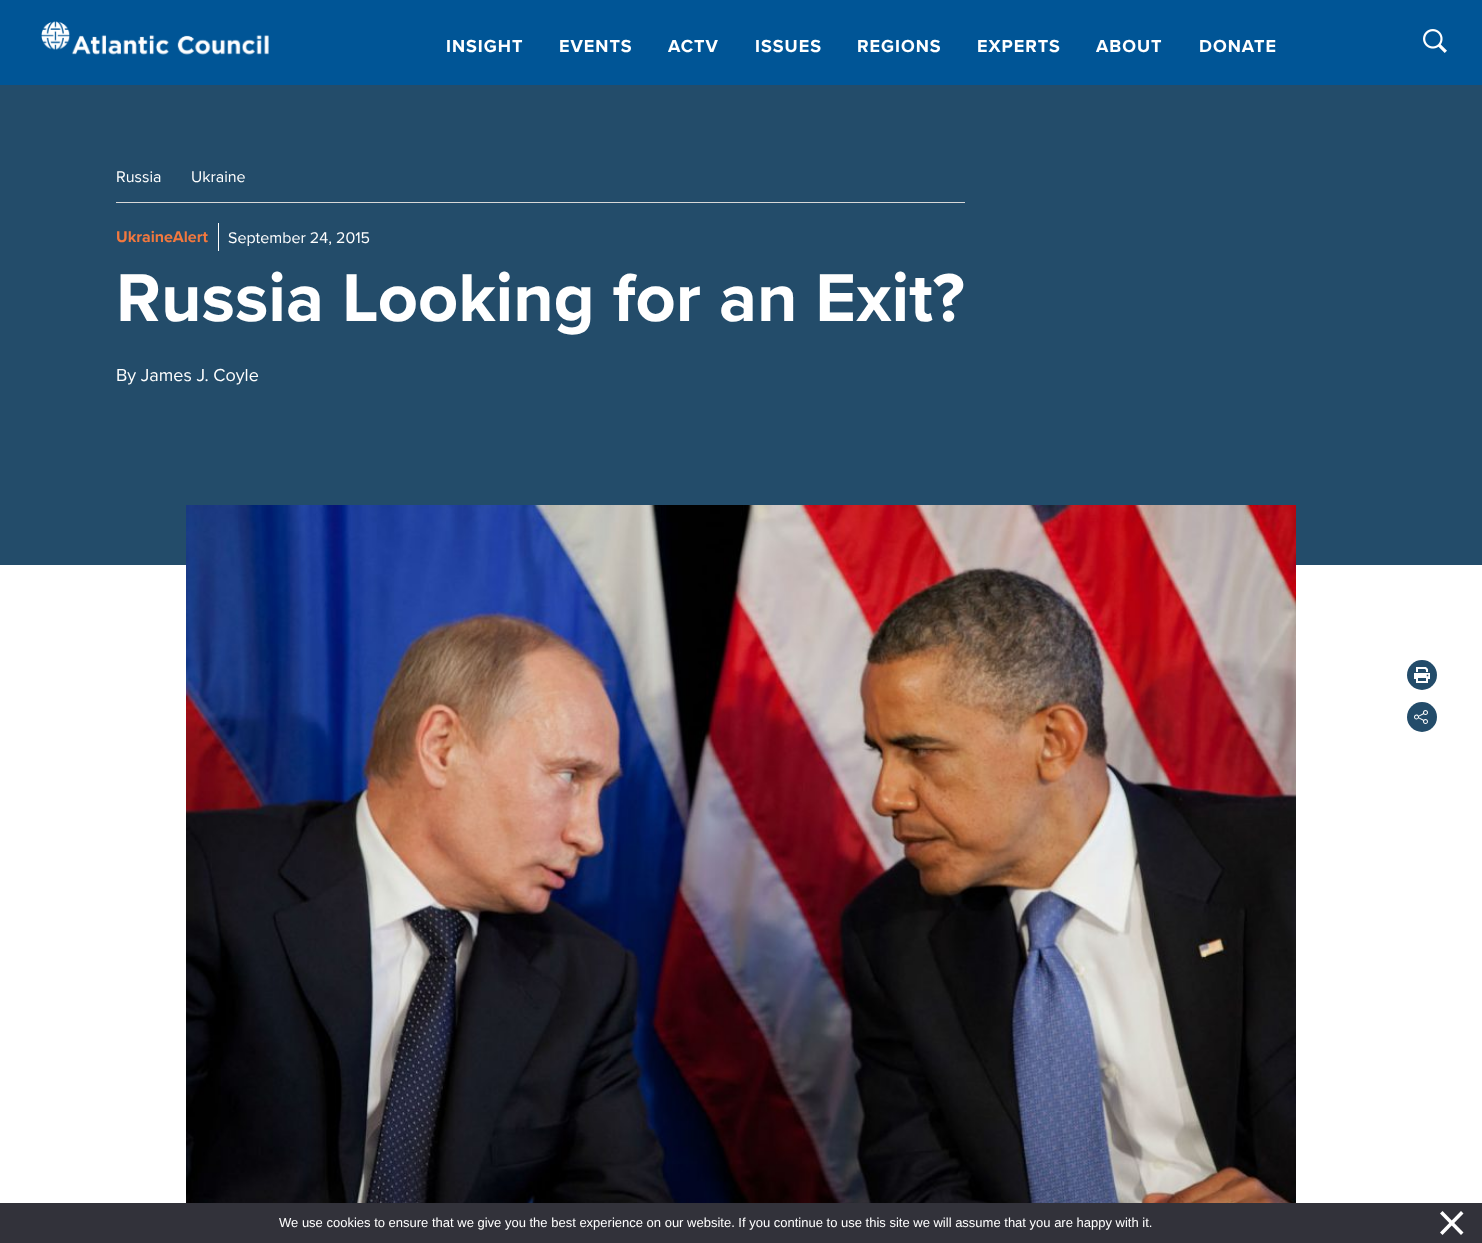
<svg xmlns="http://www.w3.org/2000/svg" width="1482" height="1243">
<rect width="100%" height="100%" fill="#fff"/>
<rect width="1482" height="85" fill="#005596"/>
<image x="41" y="21" width="228" height="34" href="media/1.png"/>
<text x="446" y="52" style="font-family:Proxima Nova;font-size:18px;font-weight:bold;letter-spacing:1px;fill:#fff">INSIGHT</text>
<text x="559" y="52" style="font-family:Proxima Nova;font-size:18px;font-weight:bold;letter-spacing:1px;fill:#fff">EVENTS</text>
<text x="668" y="52" style="font-family:Proxima Nova;font-size:18px;font-weight:bold;letter-spacing:1px;fill:#fff">ACTV</text>
<text x="755" y="52" style="font-family:Proxima Nova;font-size:18px;font-weight:bold;letter-spacing:1px;fill:#fff">ISSUES</text>
<text x="857" y="52" style="font-family:Proxima Nova;font-size:18px;font-weight:bold;letter-spacing:1px;fill:#fff">REGIONS</text>
<text x="977" y="52" style="font-family:Proxima Nova;font-size:18px;font-weight:bold;letter-spacing:1px;fill:#fff">EXPERTS</text>
<text x="1096" y="52" style="font-family:Proxima Nova;font-size:18px;font-weight:bold;letter-spacing:1px;fill:#fff">ABOUT</text>
<text x="1199" y="52" style="font-family:Proxima Nova;font-size:18px;font-weight:bold;letter-spacing:1px;fill:#fff">DONATE</text>
<image x="1423" y="29" width="24" height="24" href="media/2.png"/>
<rect y="85" width="1482" height="480" fill="#234c6a"/>
<rect x="116" y="202" width="849" height="1" fill="#d8d8d8"/>
<text x="116" y="182" style="font-family:Proxima Nova;font-size:16px;fill:#fff">Russia</text>
<text x="191" y="182" style="font-family:Proxima Nova;font-size:16px;fill:#fff">Ukraine</text>
<text x="116" y="242" style="font-family:Proxima Nova;font-size:16px;font-weight:bold;fill:#f2783e">UkraineAlert</text>
<rect x="218" y="223" width="1" height="28" fill="#fff"/>
<text x="228" y="243" style="font-family:Proxima Nova;font-size:16px;fill:#fff">September 24, 2015</text>
<text x="116" y="321" style="font-family:Proxima Nova;font-size:70px;font-weight:bold;fill:#fff">Russia Looking for an Exit?</text>
<text x="116" y="381" style="font-family:Proxima Nova;font-size:18px;fill:#fff">By James J. Coyle</text>
<image x="186" y="505" width="1110" height="698" href="media/3.png"/>
<circle cx="1422" cy="675" r="15" fill="#234c6a"/>
<image x="1414" y="667" width="16" height="16" href="media/4.png"/>
<circle cx="1422" cy="717" r="15" fill="#234c6a"/>
<image x="1414" y="710" width="14" height="14" href="media/5.png"/>
<rect y="1203" width="1482" height="40" fill="#32323a"/>
<text x="279" y="1227" style="font-family:Liberation Sans;font-size:13px;fill:#fff">We use cookies to ensure that we give you the best experience on our website. If you continue to use this site we will assume that you are happy with it.</text>
<path d="M1461 1211l2.5 2.5l-21 21.5l-2.5-2.5z" fill="#fff"/>
<path d="M1440 1213.5l2.5-2.5l21 21.5l-2.5 2.5z" fill="#fff"/>
</svg>
